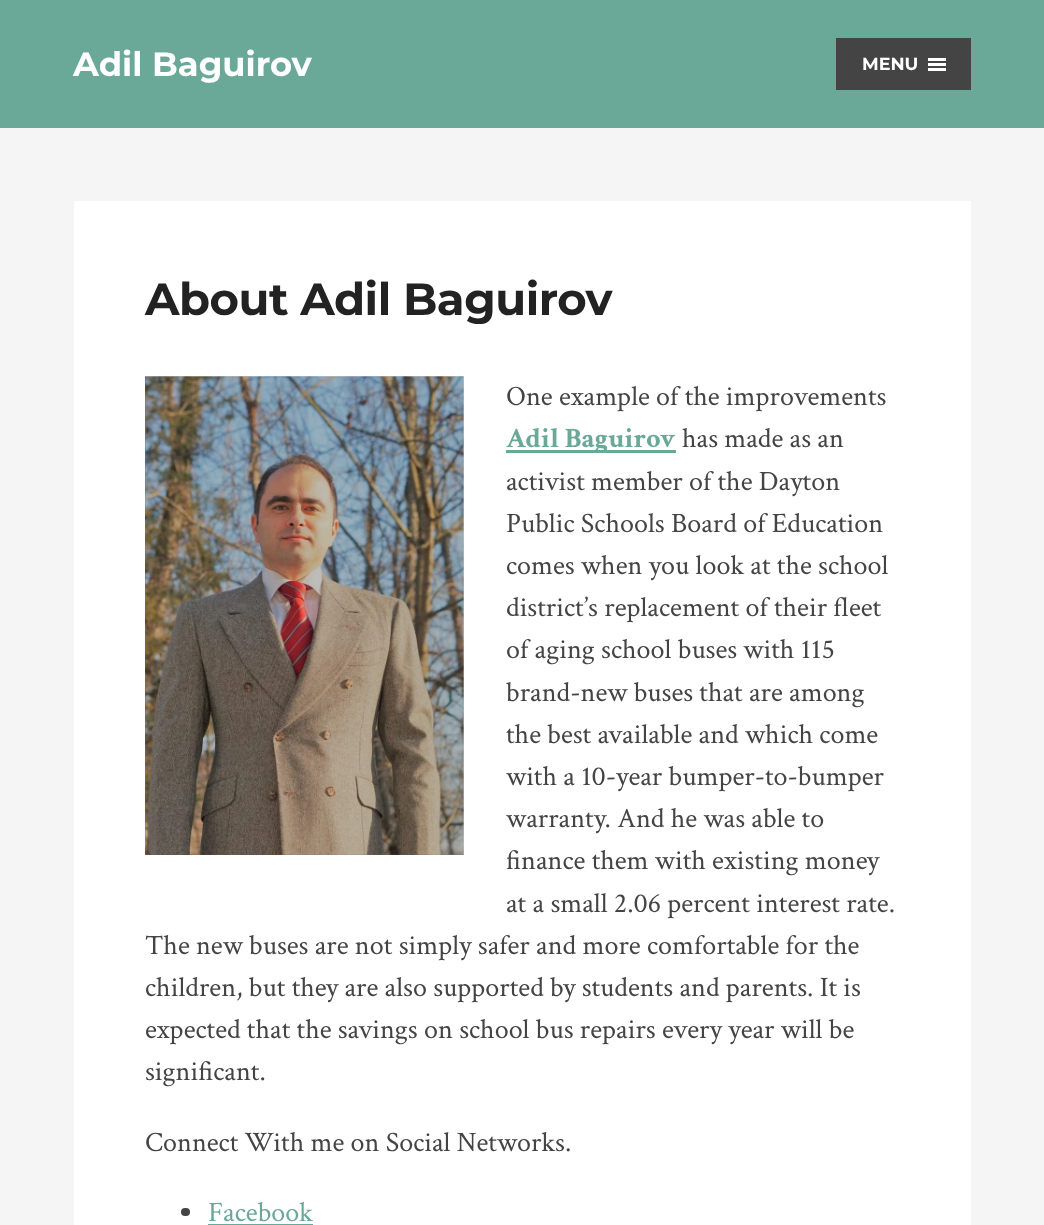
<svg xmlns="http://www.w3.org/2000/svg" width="1044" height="1225">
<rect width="100%" height="100%" fill="#f5f5f5"/>
<rect width="1044" height="128" fill="#6aa897"/>
<text x="73" y="76" style="font-family:Montserrat;font-size:33.75px;font-weight:100;fill:#fff">Adil Baguirov</text>
<rect x="836" y="38" width="135" height="52" fill="#444"/>
<text x="862" y="70" style="font-family:Montserrat;font-size:17.5px;font-weight:100;fill:#fff">MENU</text>
<rect x="928" y="58" width="18" height="3" fill="#fff"/>
<rect x="928" y="63" width="18" height="3" fill="#fff"/>
<rect x="928" y="68" width="18" height="3" fill="#fff"/>
<rect x="74" y="201" width="897" height="1024" fill="#fff"/>
<text x="145" y="315" style="font-family:Montserrat;font-size:45px;font-weight:100;letter-spacing:-0.5px;fill:#222">About Adil Baguirov</text>
<image x="145" y="376" width="319" height="479" href="media/1.png"/>
<text x="506" y="405" style="font-family:Crimson Text;font-size:28.1px;fill:#444">One example of the improvements</text>
<rect x="506" y="450" width="170" height="3" fill="#6aa897"/>
<text x="506" y="447" style="font-family:Crimson Text;font-size:28.1px;font-weight:bold;fill:#6aa897">Adil Baguirov</text>
<text x="682" y="447" style="font-family:Crimson Text;font-size:28.1px;fill:#444">has made as an</text>
<text x="506" y="490" style="font-family:Crimson Text;font-size:28.1px;fill:#444">activist member of the Dayton</text>
<text x="506" y="532" style="font-family:Crimson Text;font-size:28.1px;fill:#444">Public Schools Board of Education</text>
<text x="506" y="574" style="font-family:Crimson Text;font-size:28.1px;fill:#444">comes when you look at the school</text>
<text x="506" y="616" style="font-family:Crimson Text;font-size:28.1px;fill:#444">district’s replacement of their fleet</text>
<text x="506" y="658" style="font-family:Crimson Text;font-size:28.1px;fill:#444">of aging school buses with 115</text>
<text x="506" y="701" style="font-family:Crimson Text;font-size:28.1px;fill:#444">brand-new buses that are among</text>
<text x="506" y="743" style="font-family:Crimson Text;font-size:28.1px;fill:#444">the best available and which come</text>
<text x="506" y="785" style="font-family:Crimson Text;font-size:28.1px;fill:#444">with a 10-year bumper-to-bumper</text>
<text x="506" y="827" style="font-family:Crimson Text;font-size:28.1px;fill:#444">warranty. And he was able to</text>
<text x="506" y="869" style="font-family:Crimson Text;font-size:28.1px;fill:#444">finance them with existing money</text>
<text x="506" y="912" style="font-family:Crimson Text;font-size:28.1px;fill:#444">at a small 2.06 percent interest rate.</text>
<text x="145" y="954" style="font-family:Crimson Text;font-size:28.1px;fill:#444">The new buses are not simply safer and more comfortable for the</text>
<text x="145" y="996" style="font-family:Crimson Text;font-size:28.1px;fill:#444">children, but they are also supported by students and parents. It is</text>
<text x="145" y="1038" style="font-family:Crimson Text;font-size:28.1px;fill:#444">expected that the savings on school bus repairs every year will be</text>
<text x="145" y="1080" style="font-family:Crimson Text;font-size:28.1px;fill:#444">significant.</text>
<text x="145" y="1151" style="font-family:Crimson Text;font-size:28.1px;fill:#444">Connect With me on Social Networks.</text>
<rect x="181" y="1208" width="9" height="8" rx="4" fill="#444"/>
<text x="208" y="1221" style="font-family:Crimson Text;font-size:28.1px;fill:#6aa897">Facebook</text>
<rect x="208" y="1224" width="105" height="1" fill="#6aa897"/>
</svg>
